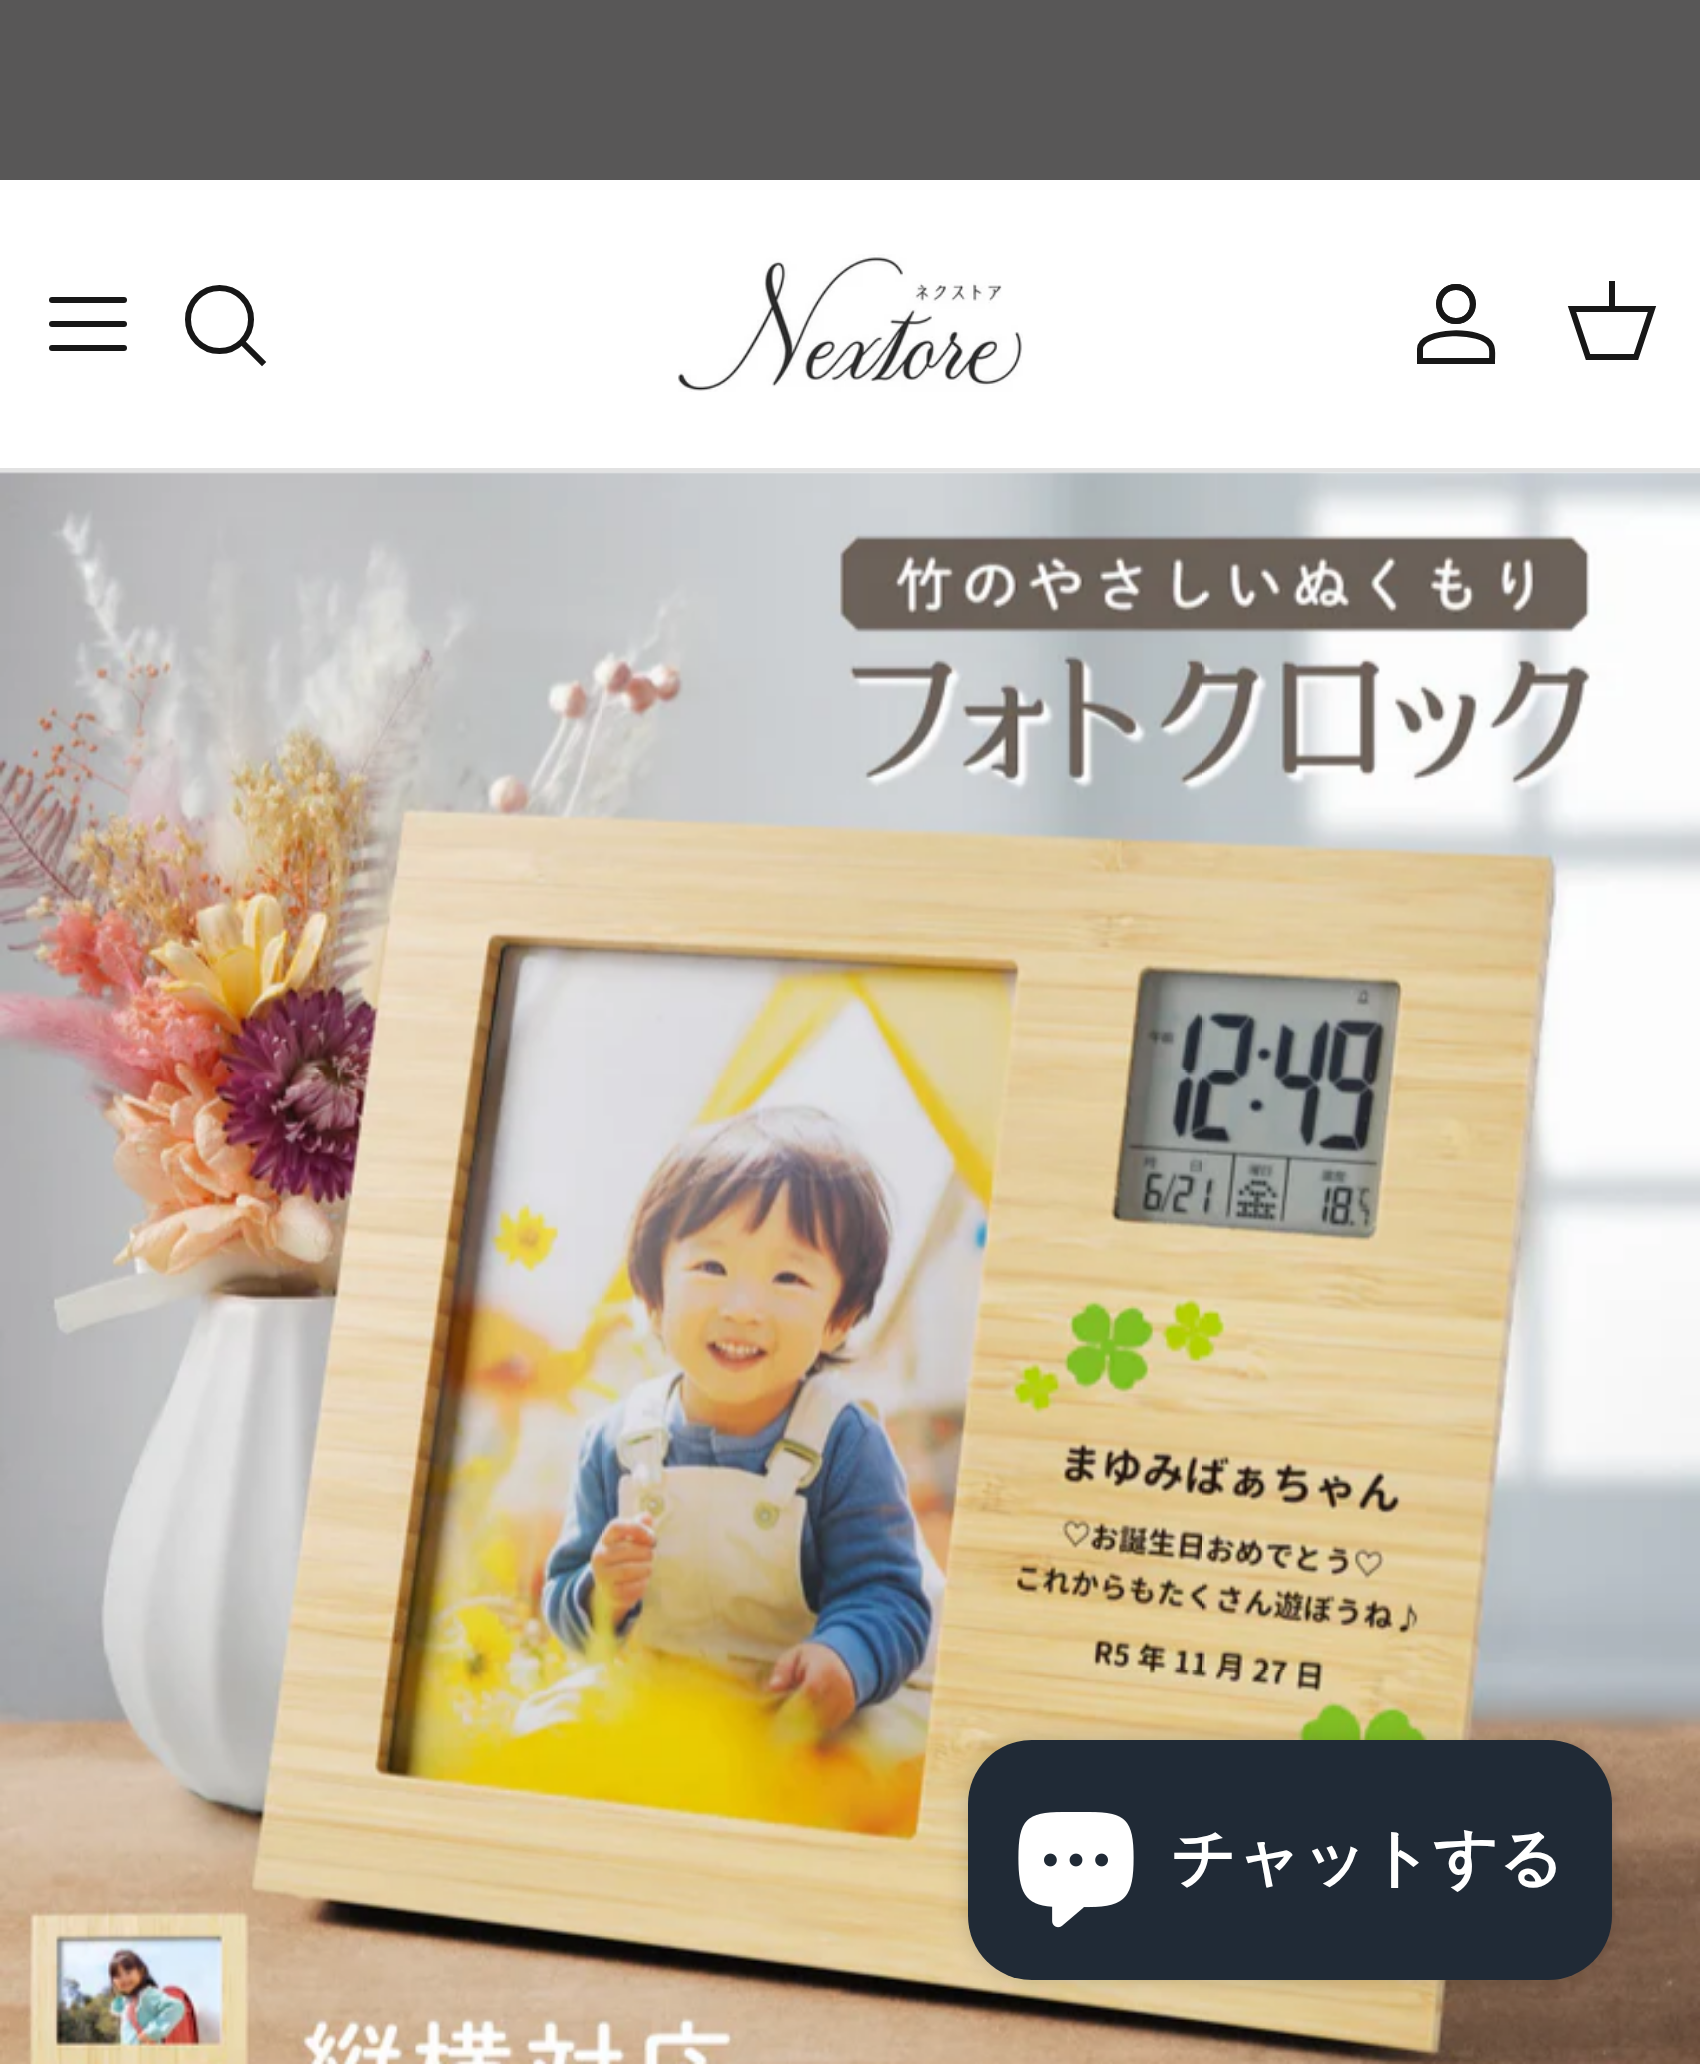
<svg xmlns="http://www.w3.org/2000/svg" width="1700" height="2064">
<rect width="100%" height="100%" fill="#fff"/>
<rect width="1700" height="180" fill="#585757"/>
<rect y="468" width="1700" height="4" fill="#e2e2e2"/>
<path d="M52 300h72" fill="none" stroke="#171717" stroke-width="6" stroke-linecap="round" stroke-linejoin="round"/>
<path d="M52 324h72" fill="none" stroke="#171717" stroke-width="6" stroke-linecap="round" stroke-linejoin="round"/>
<path d="M52 348h72" fill="none" stroke="#171717" stroke-width="6" stroke-linecap="round" stroke-linejoin="round"/>
<circle cx="219.5" cy="319.5" r="31.5" fill="none" stroke="#171717" stroke-width="6"/>
<path d="M244 344l18 18" fill="none" stroke="#171717" stroke-width="6" stroke-linecap="square"/>
<image x="678" y="254" width="345" height="138" href="media/1.png"/>
<path d="M1456 284c26 0 26 40 0 40c-26 0-26-40 0-40zm0 6c-19 0-19 28 0 28c18 1 19-28 0-28z" fill="#171717" fill-rule="evenodd"/>
<circle cx="1456" cy="304" r="17" fill="none" stroke="#171717" stroke-width="6"/>
<path d="M1420 349c0-19.5 63-21 71-3.5c2 4 1 11 1 15.5h-72z" fill="none" stroke="#171717" stroke-width="6"/>
<path d="M1572 309h80l-16 48h-48z" fill="none" stroke="#171717" stroke-width="6"/>
<rect x="1609" y="281" width="6" height="30" fill="#171717"/>
<image x="0" y="472" width="1700" height="1592" href="media/2.png"/>
<rect x="968" y="1740" width="644" height="240" rx="64" fill="#00000026" filter="blur(10px)"/>
<rect x="968" y="1740" width="644" height="240" rx="64" fill="#202a36"/>
<image x="1018" y="1812" width="116" height="116" href="media/3.png"/>
<text x="1171" y="1880" style="font-family:WenQuanYi Zen Hei;font-size:64px;font-weight:bold;fill:#fff">チャットする</text>
</svg>
